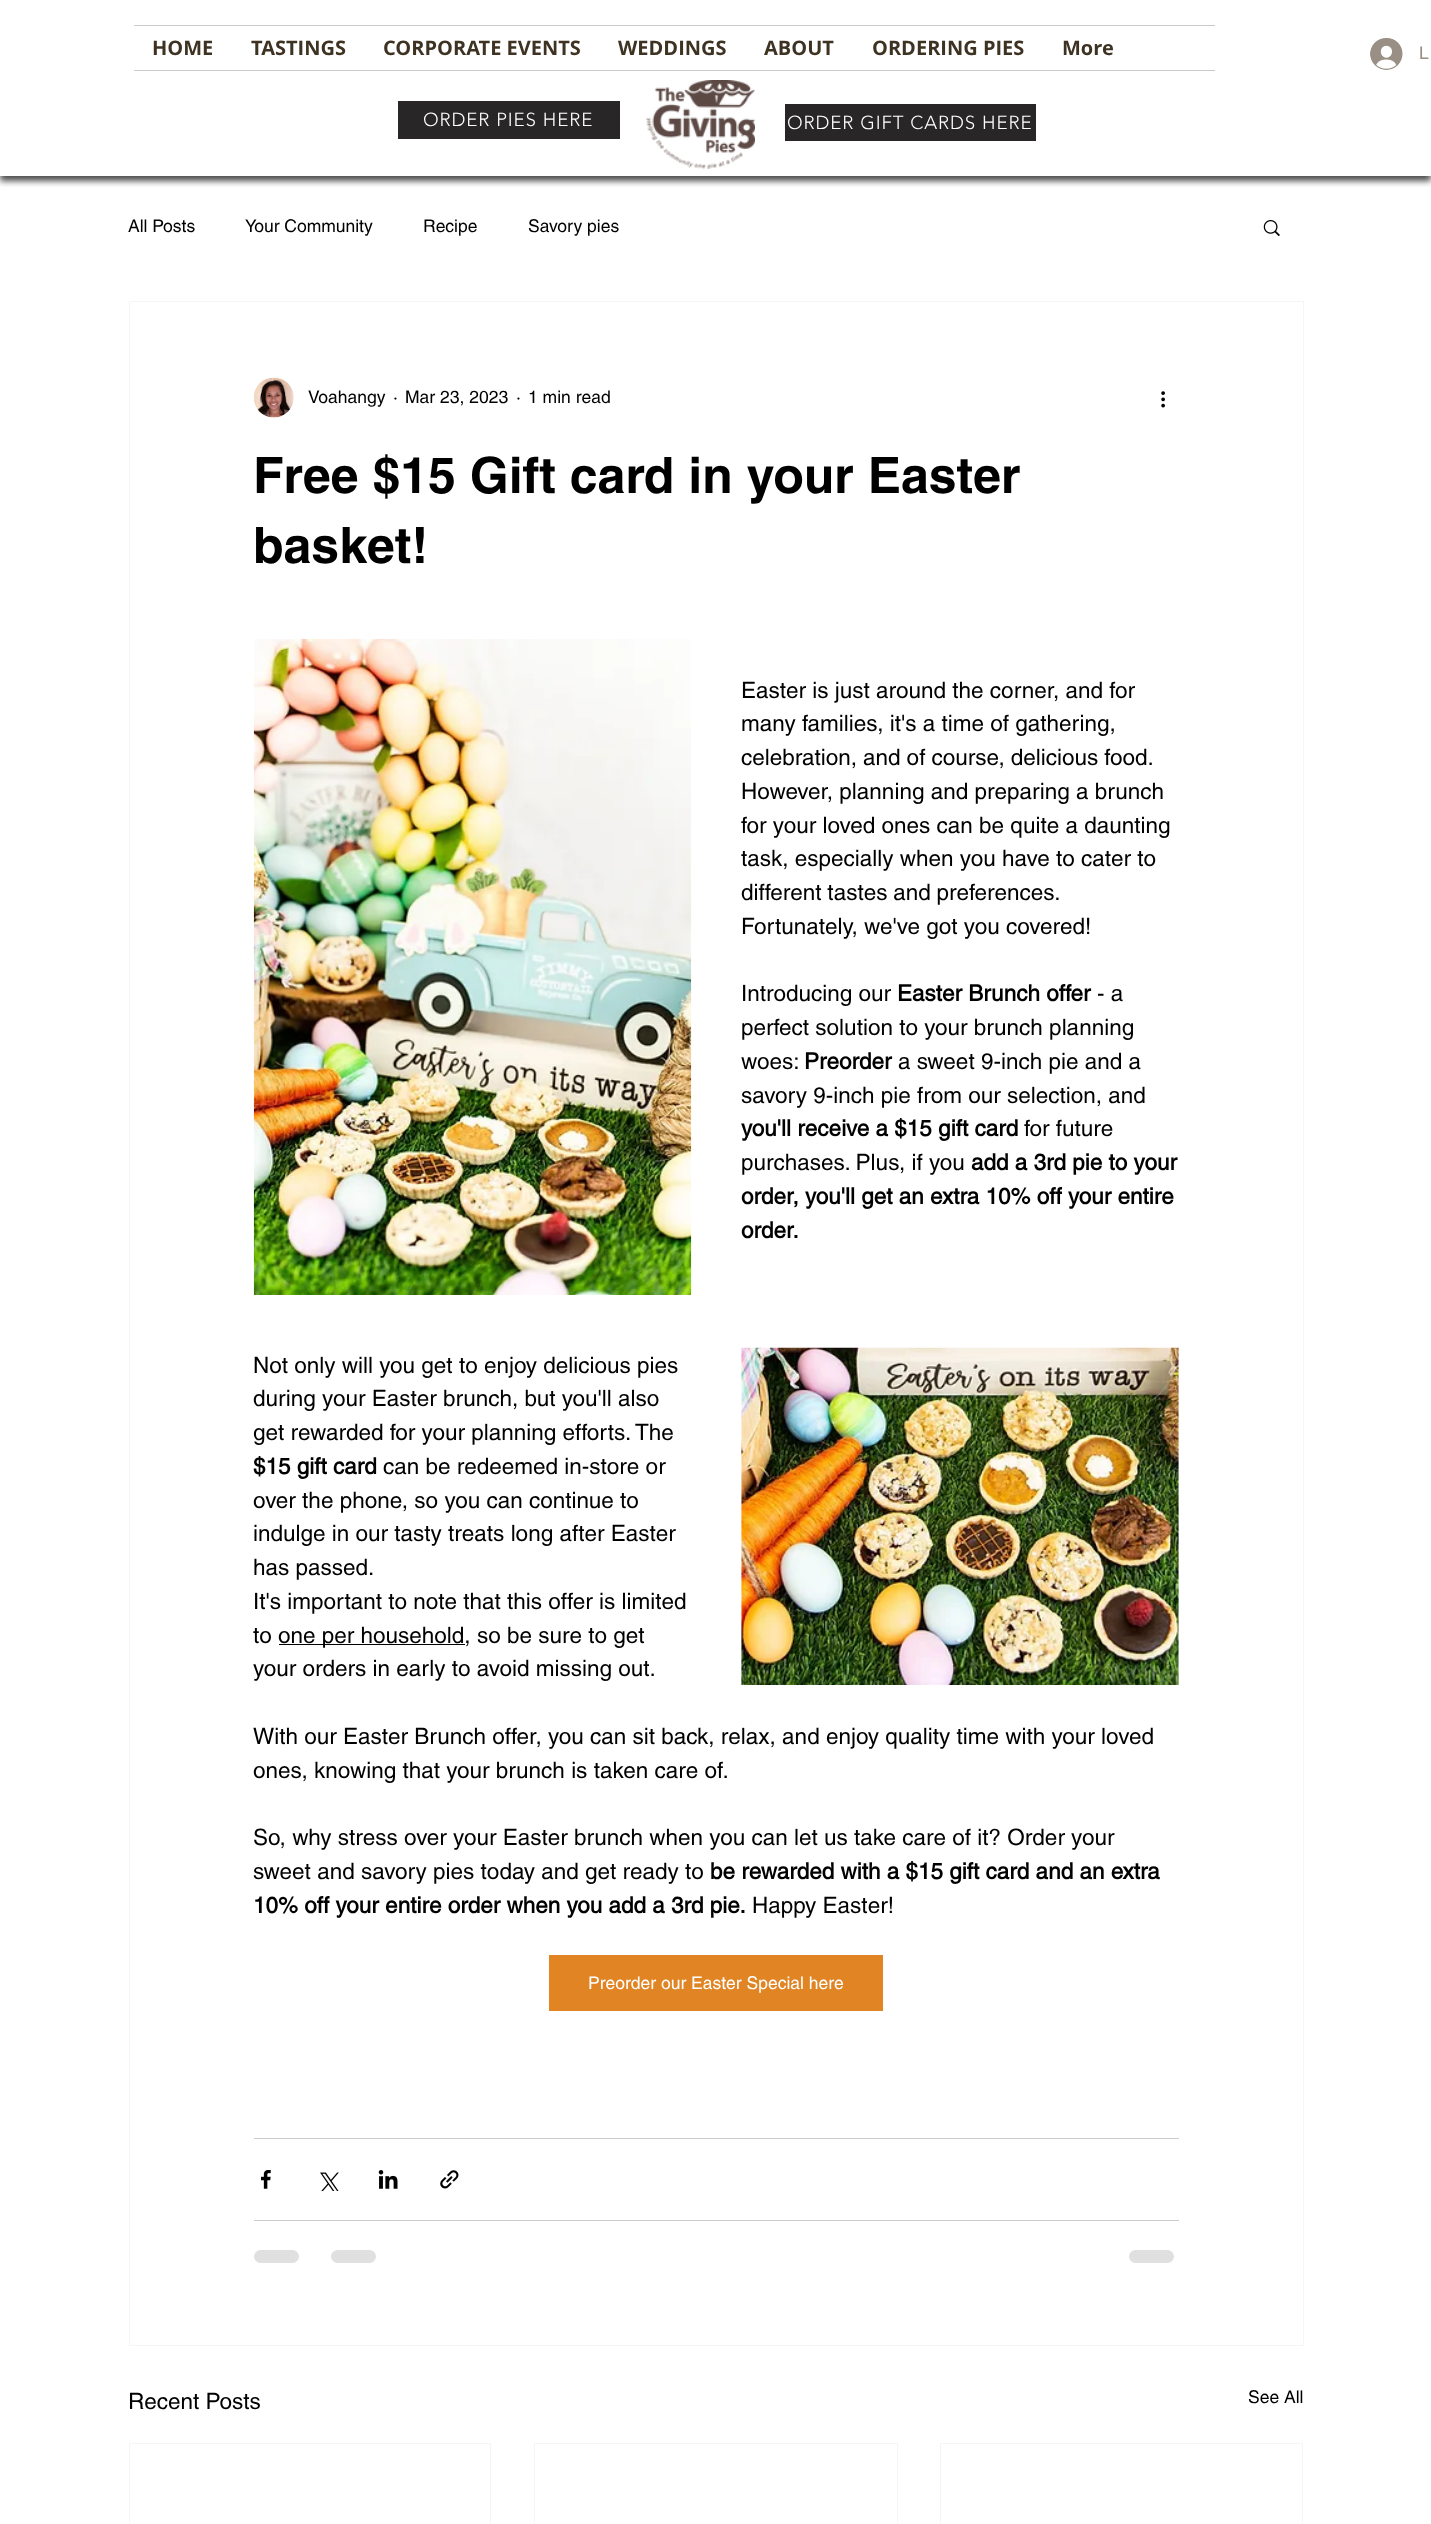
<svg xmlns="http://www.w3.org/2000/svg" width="1431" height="2524">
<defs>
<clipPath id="clip1"><rect x="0" y="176" width="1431" height="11"/></clipPath>
</defs>
<rect width="100%" height="100%" fill="#fff"/>
<g clip-path="url(#clip1)">
<rect y="5" width="1431" height="176" fill="#000000b3" filter="blur(3px)"/>
</g>
<rect x="134" y="25" width="1081" height="1" fill="#cacaca"/>
<rect x="134" y="70" width="1081" height="1" fill="#cacaca"/>
<text x="152" y="55" style="font-family:Open Sans;font-size:20px;font-weight:bold;fill:#3e3322">HOME</text>
<text x="251" y="55" style="font-family:Open Sans;font-size:20px;font-weight:bold;fill:#3e3322">TASTINGS</text>
<text x="383" y="55" style="font-family:Open Sans;font-size:20px;font-weight:bold;fill:#3e3322">CORPORATE EVENTS</text>
<text x="618" y="55" style="font-family:Open Sans;font-size:20px;font-weight:bold;fill:#3e3322">WEDDINGS</text>
<text x="764" y="55" style="font-family:Open Sans;font-size:20px;font-weight:bold;fill:#3e3322">ABOUT</text>
<text x="872" y="55" style="font-family:Open Sans;font-size:20px;font-weight:bold;fill:#3e3322">ORDERING PIES</text>
<text x="1062" y="55" style="font-family:Open Sans;font-size:20px;font-weight:bold;fill:#3e3322">More</text>
<image x="1370" y="38" width="33" height="32" href="media/1.png"/>
<text x="1419" y="59" style="font-family:helvetica;font-size:17.5px;fill:#998f84">L</text>
<rect x="398" y="101" width="222" height="38" fill="#282626"/>
<text x="423" y="126" style="font-family:'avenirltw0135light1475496';font-size:18.75px;font-weight:300;letter-spacing:0.9px;fill:#fff">ORDER PIES HERE</text>
<image x="646" y="80" width="109" height="89" href="media/2.png"/>
<rect x="785" y="104" width="251" height="37" fill="#282626"/>
<text x="787" y="129" style="font-family:'avenirltw0135light1475496';font-size:18.75px;font-weight:300;letter-spacing:0.9px;fill:#fff">ORDER GIFT CARDS HERE</text>
<text x="128" y="232" style="font-family:helvetica;font-size:17.5px;fill:#000">All Posts</text>
<text x="245" y="232" style="font-family:helvetica;font-size:17.5px;fill:#000">Your Community</text>
<text x="423" y="232" style="font-family:helvetica;font-size:17.5px;fill:#000">Recipe</text>
<text x="528" y="232" style="font-family:helvetica;font-size:17.5px;fill:#000">Savory pies</text>
<image x="1263" y="220" width="17" height="17" href="media/3.png"/>
<rect x="129.5" y="301.5" width="1174" height="2044" fill="none" stroke="#f5f5f5"/>
<image x="253" y="377" width="41" height="41" href="media/4.png"/>
<text x="308" y="403" style="font-family:helvetica;font-size:17.5px;fill:#000">Voahangy</text>
<text x="393" y="403" style="font-family:helvetica;font-size:17.5px;fill:#000">·</text>
<text x="405" y="403" style="font-family:helvetica;font-size:17.5px;fill:#000">Mar 23, 2023</text>
<text x="516" y="403" style="font-family:helvetica;font-size:17.5px;fill:#000">·</text>
<text x="528" y="403" style="font-family:helvetica;font-size:17.5px;fill:#000">1 min read</text>
<image x="1161" y="391" width="4" height="17" href="media/5.png"/>
<text x="253" y="493" style="font-family:helvetica;font-size:50px;font-weight:bold;fill:#000">Free $15 Gift card in your Easter</text>
<text x="253" y="563" style="font-family:helvetica;font-size:50px;font-weight:bold;fill:#000">basket!</text>
<image x="253" y="638" width="439" height="657" href="media/6.png"/>
<text x="741" y="698" style="font-family:helvetica;font-size:22.5px;fill:#000">Easter is just around the corner, and for</text>
<text x="741" y="731" style="font-family:helvetica;font-size:22.5px;fill:#000">many families, it's a time of gathering,</text>
<text x="741" y="765" word-spacing="-0.25" style="font-family:helvetica;font-size:22.5px;fill:#000">celebration, and of course, delicious food.</text>
<text x="741" y="799" style="font-family:helvetica;font-size:22.5px;fill:#000">However, planning and preparing a brunch</text>
<text x="741" y="833" style="font-family:helvetica;font-size:22.5px;fill:#000">for your loved ones can be quite a daunting</text>
<text x="741" y="866" style="font-family:helvetica;font-size:22.5px;fill:#000">task, especially when you have to cater to</text>
<text x="741" y="900" word-spacing="-0.5" style="font-family:helvetica;font-size:22.5px;fill:#000">different tastes and preferences.</text>
<text x="741" y="934" style="font-family:helvetica;font-size:22.5px;fill:#000">Fortunately, we've got you covered!</text>
<text x="741" y="1001" style="font-family:helvetica;font-size:22.5px;fill:#000">Introducing our</text>
<text x="897" y="1001" style="font-family:'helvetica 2';font-size:22.5px;font-weight:bold;fill:#000">Easter Brunch offer</text>
<text x="1097" y="1001" style="font-family:helvetica;font-size:22.5px;fill:#000">- a</text>
<text x="741" y="1035" style="font-family:helvetica;font-size:22.5px;fill:#000">perfect solution to your brunch planning</text>
<text x="741" y="1069" style="font-family:helvetica;font-size:22.5px;fill:#000">woes:</text>
<text x="804" y="1069" style="font-family:'helvetica 2';font-size:22.5px;font-weight:bold;fill:#000">Preorder</text>
<text x="898" y="1069" style="font-family:helvetica;font-size:22.5px;fill:#000">a sweet 9-inch pie and a</text>
<text x="741" y="1103" style="font-family:helvetica;font-size:22.5px;fill:#000">savory 9-inch pie from our selection, and</text>
<text x="741" y="1136" style="font-family:'helvetica 2';font-size:22.5px;font-weight:bold;fill:#000">you'll receive a $15 gift card</text>
<text x="1024" y="1136" style="font-family:helvetica;font-size:22.5px;fill:#000">for future</text>
<text x="741" y="1170" style="font-family:helvetica;font-size:22.5px;fill:#000">purchases. Plus, if you</text>
<text x="971" y="1170" style="font-family:'helvetica 2';font-size:22.5px;font-weight:bold;fill:#000">add a 3rd pie to your</text>
<text x="741" y="1204" style="font-family:'helvetica 2';font-size:22.5px;font-weight:bold;fill:#000">order, you'll get an extra 10% off your entire</text>
<text x="741" y="1238" style="font-family:'helvetica 2';font-size:22.5px;font-weight:bold;fill:#000">order.</text>
<text x="253" y="1373" style="font-family:helvetica;font-size:22.5px;fill:#000">Not only will you get to enjoy delicious pies</text>
<text x="253" y="1406" style="font-family:helvetica;font-size:22.5px;fill:#000">during your Easter brunch, but you'll also</text>
<text x="253" y="1440" style="font-family:helvetica;font-size:22.5px;fill:#000">get rewarded for your planning efforts. The</text>
<text x="253" y="1474" style="font-family:'helvetica 2';font-size:22.5px;font-weight:bold;fill:#000">$15 gift card</text>
<text x="383" y="1474" style="font-family:helvetica;font-size:22.5px;fill:#000">can be redeemed in-store or</text>
<text x="253" y="1508" style="font-family:helvetica;font-size:22.5px;fill:#000">over the phone, so you can continue to</text>
<text x="253" y="1541" style="font-family:helvetica;font-size:22.5px;fill:#000">indulge in our tasty treats long after Easter</text>
<text x="253" y="1575" style="font-family:helvetica;font-size:22.5px;fill:#000">has passed.</text>
<image x="741" y="1347" width="438" height="338" href="media/7.png"/>
<text x="253" y="1609" style="font-family:helvetica;font-size:22.5px;fill:#000">It's important to note that this offer is limited</text>
<text x="253" y="1643" style="font-family:helvetica;font-size:22.5px;fill:#000">to</text>
<rect x="279" y="1644" width="186" height="1" fill="#000"/>
<text x="278" y="1643" style="font-family:helvetica;font-size:22.5px;fill:#000">one per household, so be sure to get</text>
<text x="253" y="1676" style="font-family:helvetica;font-size:22.5px;fill:#000">your orders in early to avoid missing out.</text>
<text x="253" y="1744" style="font-family:helvetica;font-size:22.5px;fill:#000">With our Easter Brunch offer, you can sit back, relax, and enjoy quality time with your loved</text>
<text x="253" y="1778" style="font-family:helvetica;font-size:22.5px;fill:#000">ones, knowing that your brunch is taken care of.</text>
<text x="253" y="1845" style="font-family:helvetica;font-size:22.5px;fill:#000">So, why stress over your Easter brunch when you can let us take care of it? Order your</text>
<text x="253" y="1879" style="font-family:helvetica;font-size:22.5px;fill:#000">sweet and savory pies today and get ready to</text>
<text x="710" y="1879" style="font-family:'helvetica 2';font-size:22.5px;font-weight:bold;fill:#000">be rewarded with a $15 gift card and an extra</text>
<text x="253" y="1913" style="font-family:'helvetica 2';font-size:22.5px;font-weight:bold;fill:#000">10% off your entire order when you add a 3rd pie.</text>
<text x="752" y="1913" style="font-family:helvetica;font-size:22.5px;fill:#000">Happy Easter!</text>
<rect x="549" y="1955" width="334" height="56" fill="#e18524"/>
<text x="588" y="1989" style="font-family:helvetica;font-size:17.5px;fill:#fff">Preorder our Easter Special here</text>
<rect x="254" y="2138" width="925" height="1" fill="#ccc"/>
<image x="261" y="2170" width="10" height="19" href="media/8.png"/>
<image x="320" y="2172" width="19" height="19" href="media/9.png"/>
<image x="378" y="2170" width="20" height="19" href="media/10.png"/>
<image x="440" y="2170" width="19" height="19" href="media/11.png"/>
<rect x="254" y="2220" width="925" height="1" fill="#ccc"/>
<rect x="254" y="2250" width="45" height="13" rx="6.5" fill="#e0e0e0"/>
<rect x="331" y="2250" width="45" height="13" rx="6.5" fill="#e0e0e0"/>
<rect x="1129" y="2250" width="45" height="13" rx="6.5" fill="#e0e0e0"/>
<text x="128" y="2409" style="font-family:helvetica;font-size:22.5px;fill:#000">Recent Posts</text>
<text x="1248" y="2403" style="font-family:helvetica;font-size:17.5px;fill:#000">See All</text>
<rect x="129.5" y="2443.5" width="361" height="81" fill="none" stroke="#f5f5f5"/>
<rect x="534.5" y="2443.5" width="363" height="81" fill="none" stroke="#f5f5f5"/>
<rect x="940.5" y="2443.5" width="362" height="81" fill="none" stroke="#f5f5f5"/>
</svg>
